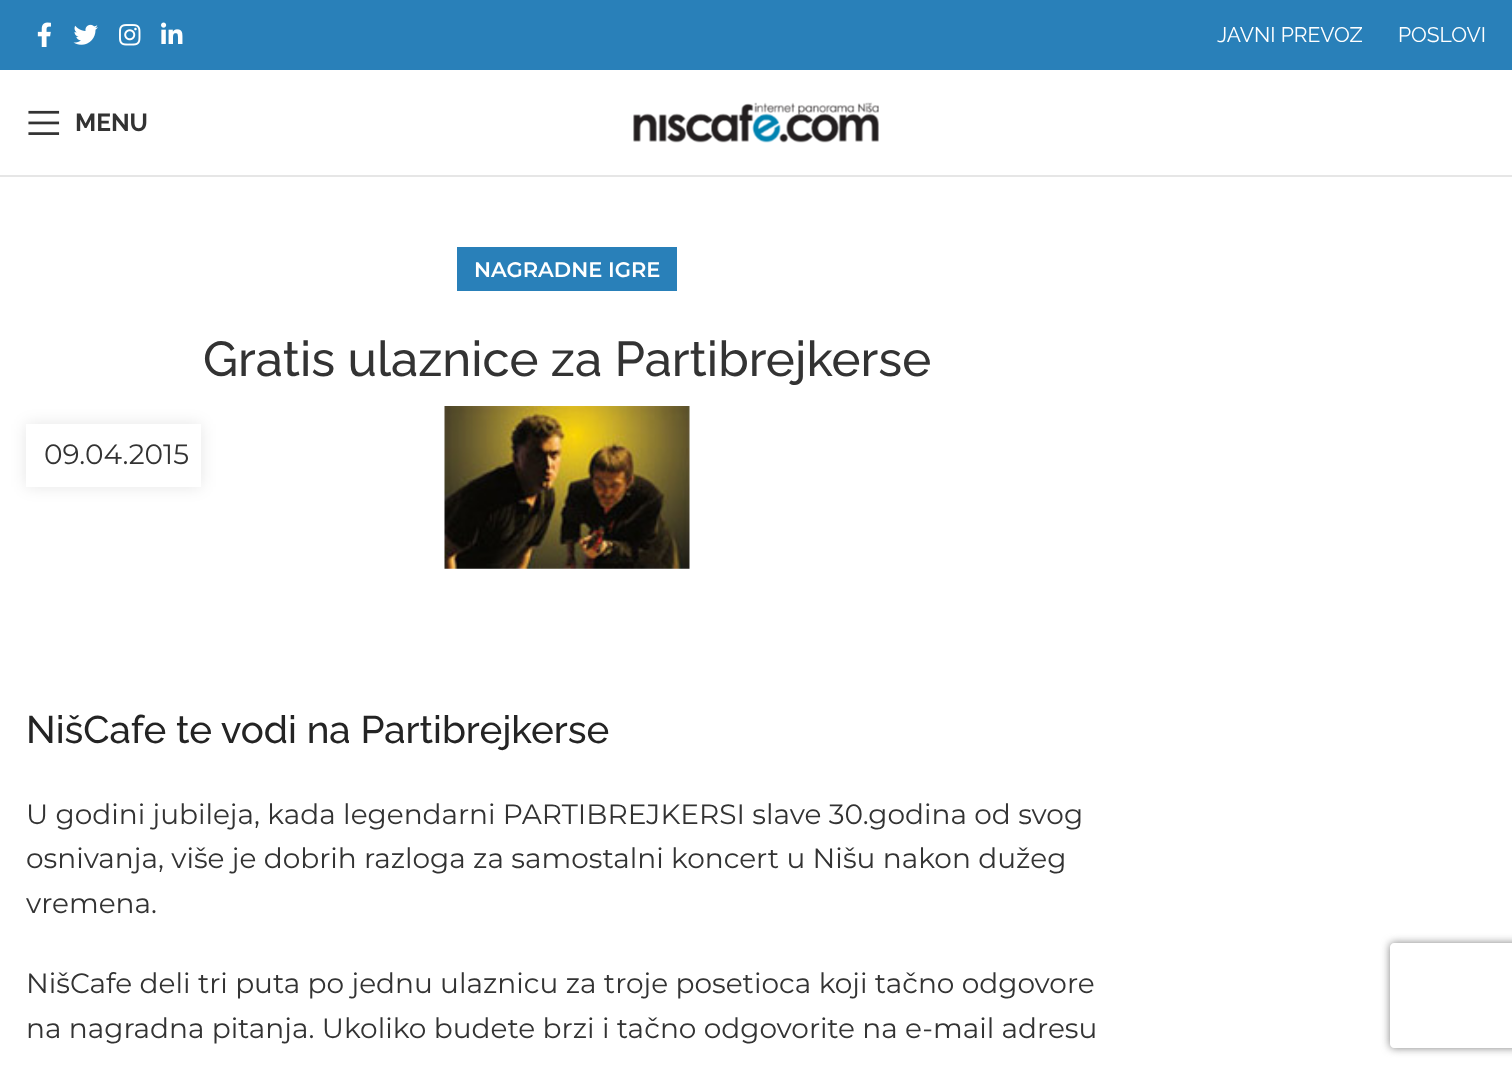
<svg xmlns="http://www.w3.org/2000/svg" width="1512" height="1072">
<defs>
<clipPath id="clip1"><path d="M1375 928h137v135h-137zm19 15h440c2 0 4 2 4 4v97c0 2-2 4-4 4h-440c-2 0-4-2-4-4v-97c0-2 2-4 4-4z" clip-rule="evenodd"/></clipPath>
</defs>
<rect width="100%" height="100%" fill="#fff"/>
<rect width="1512" height="70" fill="#2980b9"/>
<image x="37" y="22" width="14" height="25" href="media/1.png"/>
<image x="73" y="24" width="25" height="21" href="media/2.png"/>
<image x="119" y="24" width="22" height="22" href="media/3.png"/>
<image x="161" y="22" width="22" height="22" href="media/4.png"/>
<text x="1217" y="42" style="font-family:Raleway;font-size:21px;fill:#fff">JAVNI PREVOZ</text>
<text x="1398" y="42" style="font-family:Raleway;font-size:21px;fill:#fff">POSLOVI</text>
<rect y="175" width="1512" height="2" fill="#e6e6e6"/>
<image x="28" y="110" width="32" height="25" href="media/5.png"/>
<text x="75" y="131" style="font-family:Raleway;font-size:24.5px;font-weight:bold;fill:#333">MENU</text>
<image x="633" y="102" width="246" height="41" href="media/6.png"/>
<rect x="457" y="247" width="220" height="44" fill="#2980b9"/>
<text x="474" y="277" style="font-family:Montserrat;font-size:21px;font-weight:600;fill:#fff">NAGRADNE IGRE</text>
<text x="203" y="376" style="font-family:Raleway;font-size:49px;font-weight:500;fill:#333">Gratis ulaznice za Partibrejkerse</text>
<rect x="26" y="424" width="175" height="63" fill="#0000001a" filter="blur(8px)"/>
<rect x="26" y="424" width="175" height="63" fill="#fff"/>
<text x="44" y="464" style="font-family:Montserrat;font-size:28px;fill:#333">09.04.2015</text>
<image x="444" y="406" width="246" height="163" href="media/7.png"/>
<text x="26" y="743" style="font-family:Raleway;font-size:38.5px;font-weight:500;fill:#242424">NišCafe te vodi na Partibrejkerse</text>
<text x="26" y="824" style="font-family:Montserrat;font-size:28px;fill:#333">U godini jubileja, kada legendarni PARTIBREJKERSI slave 30.godina od svog</text>
<text x="26" y="868" style="font-family:Montserrat;font-size:28px;fill:#333">osnivanja, više je dobrih razloga za samostalni koncert u Nišu nakon dužeg</text>
<text x="26" y="913" style="font-family:Montserrat;font-size:28px;fill:#333">vremena.</text>
<text x="26" y="993" style="font-family:Montserrat;font-size:28px;fill:#333">NišCafe deli tri puta po jednu ulaznicu za troje posetioca koji tačno odgovore</text>
<text x="26" y="1038" style="font-family:Montserrat;font-size:28px;fill:#333">na nagradna pitanja. Ukoliko budete brzi i tačno odgovorite na e-mail adresu</text>
<g clip-path="url(#clip1)">
<rect x="1390" y="943" width="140" height="105" rx="4" fill="#808080" filter="blur(4.5px)"/>
</g>
</svg>
